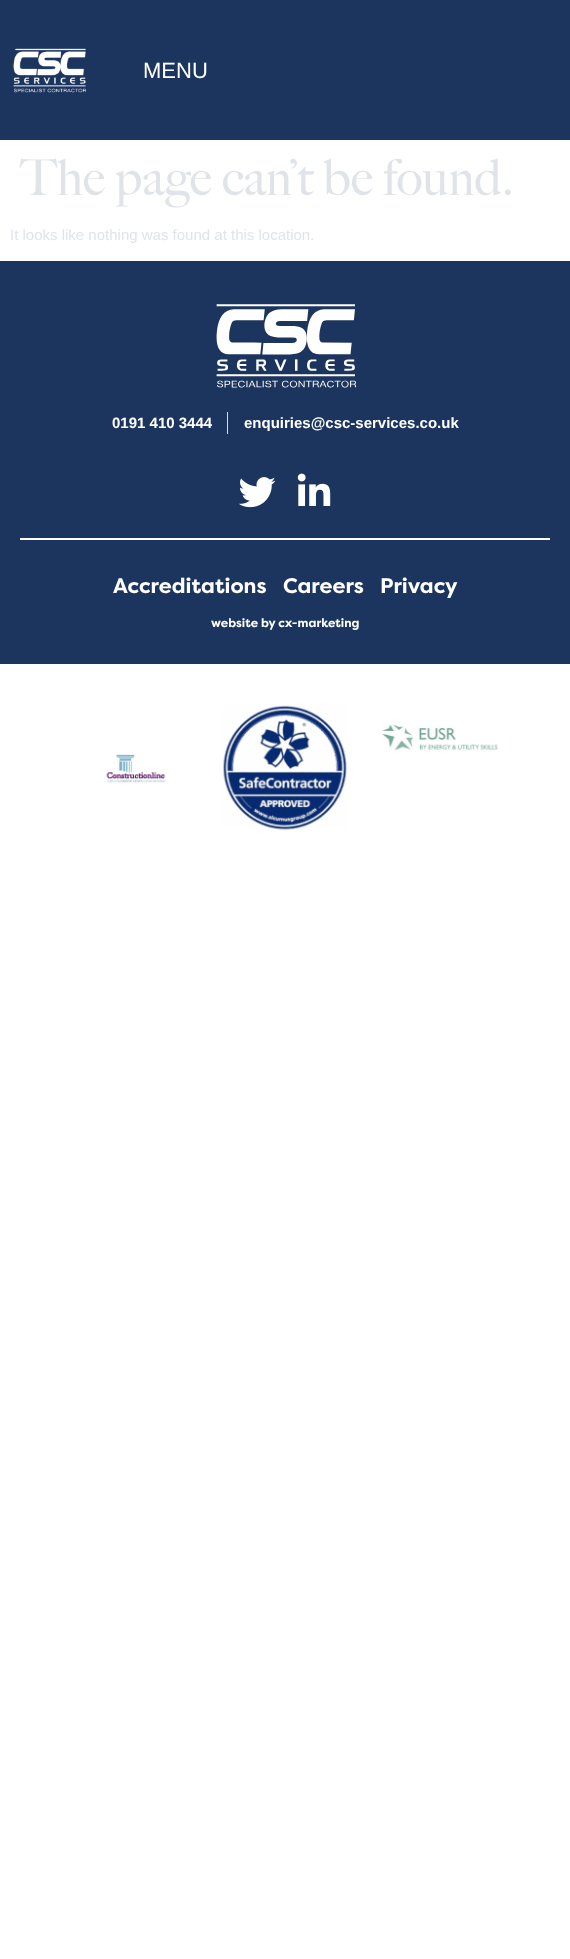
<svg xmlns="http://www.w3.org/2000/svg" width="570" height="1959">
<rect width="100%" height="100%" fill="#fff"/>
<rect width="570" height="140" fill="#1c355e"/>
<image x="13" y="48" width="73" height="45" href="media/1.png"/>
<text x="143" y="78" style="font-family:Liberation Sans;font-size:22px;fill:#fff">MENU</text>
<text x="20" y="195" style="font-family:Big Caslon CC;font-size:50px;fill:#e0e4e9">The page can’t be found.</text>
<text x="10" y="240" style="font-family:Liberation Sans;font-size:15px;fill:#e0e4e9">It looks like nothing was found at this location.</text>
<rect y="261" width="570" height="403" fill="#1c355e"/>
<rect x="20" y="538" width="530" height="2" fill="#fff"/>
<image x="216" y="304" width="141" height="84" href="media/2.png"/>
<text x="112" y="428" style="font-family:Liberation Sans;font-size:15px;font-weight:bold;fill:#fff">0191 410 3444</text>
<rect x="227" y="412" width="1" height="22" fill="#ddd"/>
<text x="244" y="428" style="font-family:Liberation Sans;font-size:15px;font-weight:bold;fill:#fff">enquiries@csc-services.co.uk</text>
<image x="238" y="477" width="38" height="31" href="media/3.png"/>
<image x="297" y="473" width="34" height="33" href="media/4.png"/>
<text x="113" y="593" style="font-family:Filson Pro;font-size:21px;font-weight:bold;fill:#fff">Accreditations</text>
<text x="283" y="593" style="font-family:Filson Pro;font-size:21px;font-weight:bold;fill:#fff">Careers</text>
<text x="380" y="593" style="font-family:Filson Pro;font-size:21px;font-weight:bold;fill:#fff">Privacy</text>
<text x="211" y="627" style="font-family:Filson Pro;font-size:12px;font-weight:bold;fill:#fff">website by cx-marketing</text>
<image x="223" y="705" width="124" height="125" href="media/5.png"/>
<image x="382" y="724" width="116" height="28" href="media/6.png"/>
<image x="106" y="754" width="60" height="29" href="media/7.png"/>
</svg>
